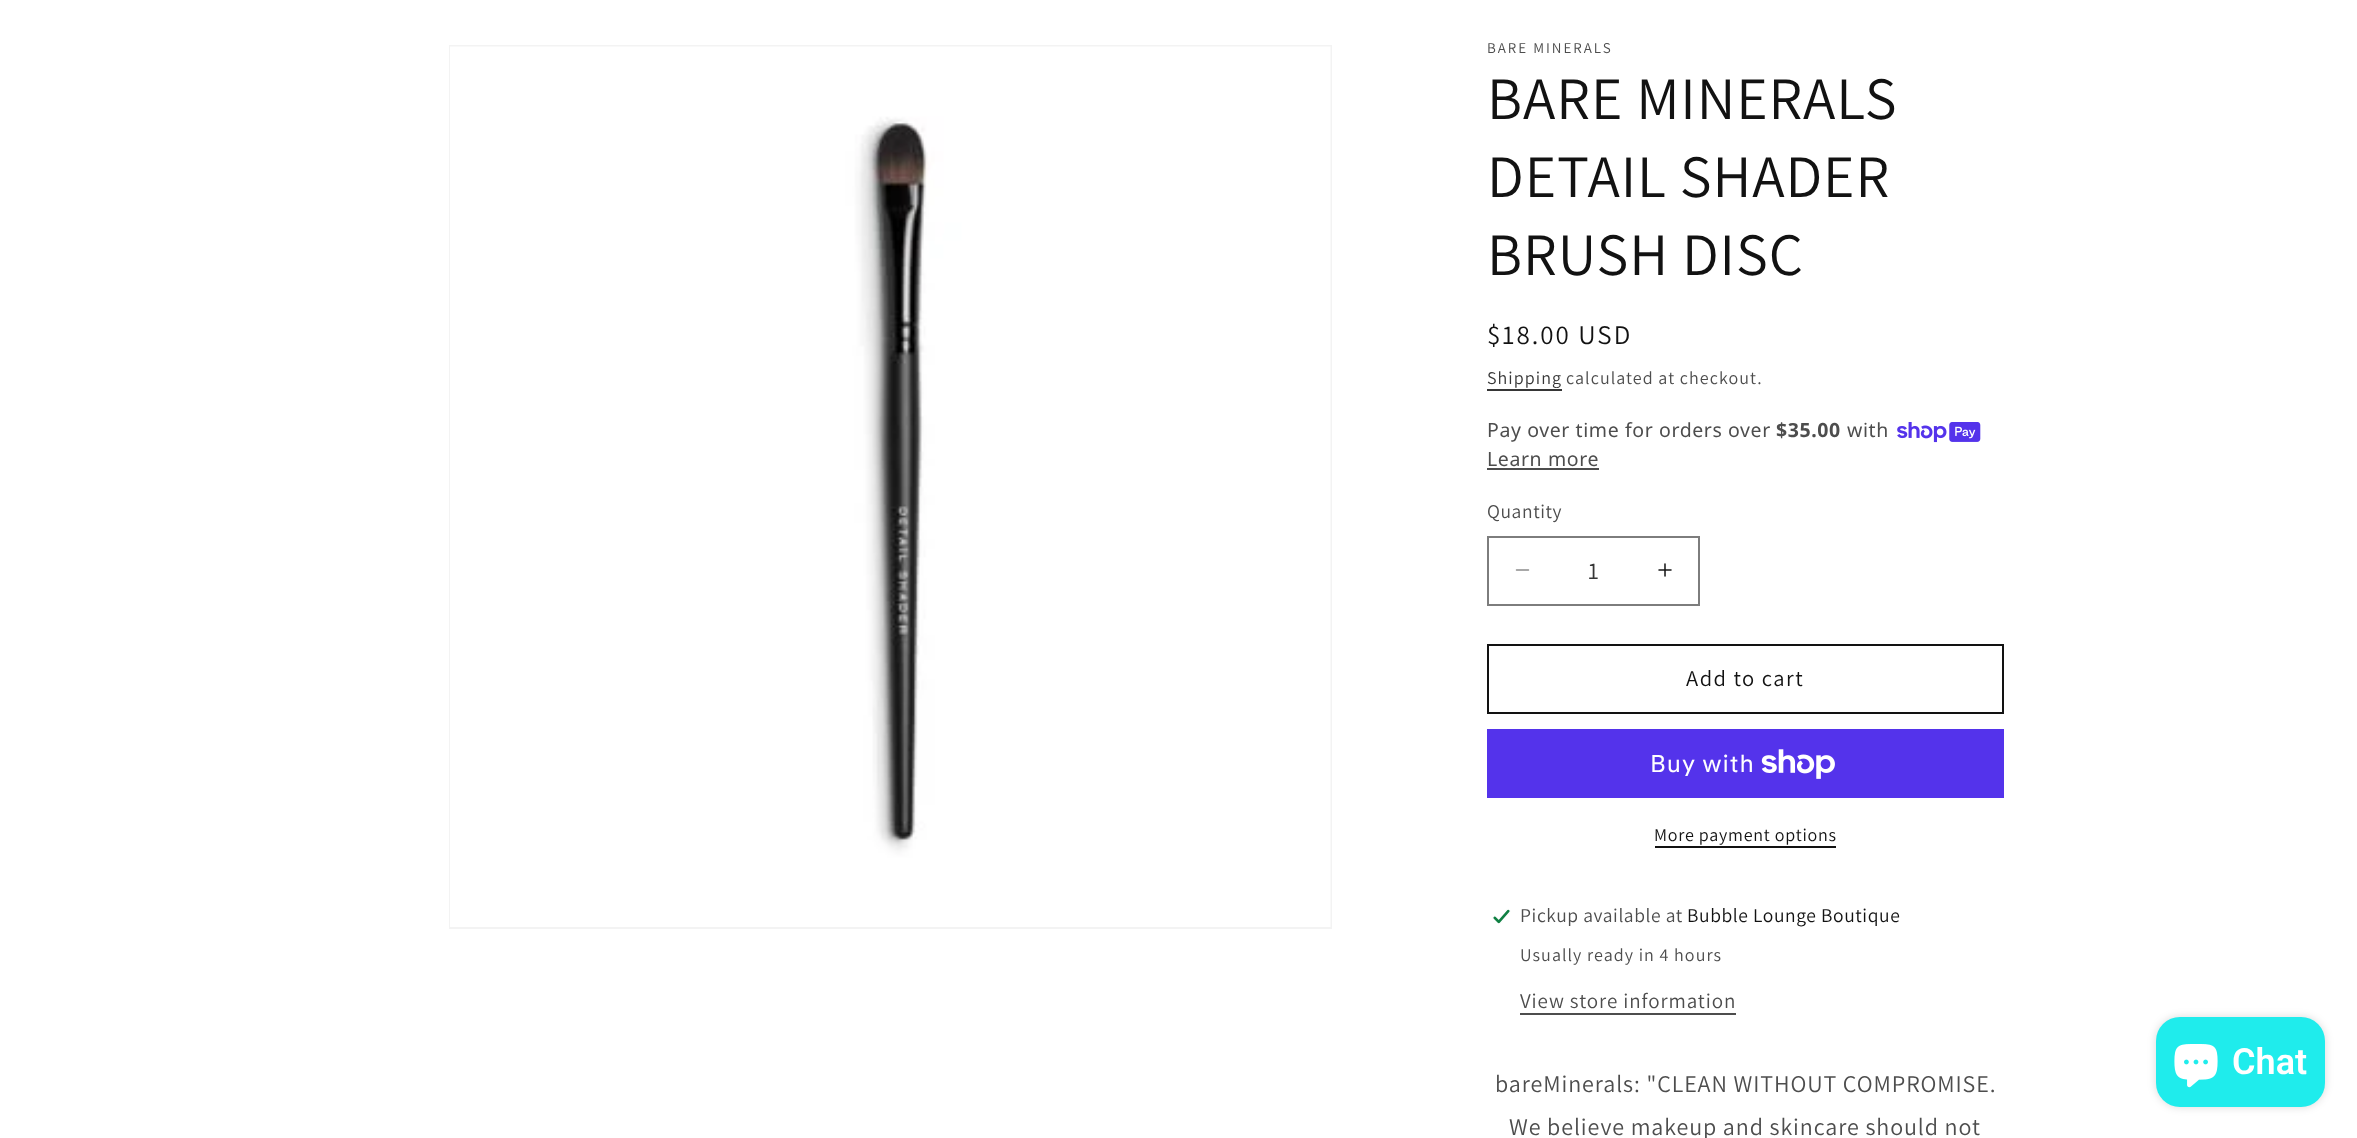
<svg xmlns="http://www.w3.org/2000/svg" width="2357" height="1138">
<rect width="100%" height="100%" fill="#fff"/>
<rect x="450" y="46" width="881" height="882" fill="none" stroke="#f3f3f3" stroke-width="2"/>
<image x="450" y="46" width="881" height="881" href="media/1.png"/>
<text x="1487" y="53" style="font-family:Assistant;font-size:15px;letter-spacing:2px;fill:#4d4d4d">BARE MINERALS</text>
<text x="1487" y="119" style="font-family:Assistant;font-size:60px;letter-spacing:0.9px;fill:#121212">BARE MINERALS</text>
<text x="1487" y="197" style="font-family:Assistant;font-size:60px;letter-spacing:0.9px;fill:#121212">DETAIL SHADER</text>
<text x="1487" y="275" style="font-family:Assistant;font-size:60px;letter-spacing:0.9px;fill:#121212">BRUSH DISC</text>
<text x="1487" y="344" style="font-family:Assistant;font-size:27px;letter-spacing:2px;fill:#121212">$18.00 USD</text>
<text x="1487" y="384" style="font-family:Assistant;font-size:18px;letter-spacing:1.05px;fill:#363636">Shipping</text>
<rect x="1487" y="389" width="75" height="2" fill="#363636"/>
<text x="1566" y="384" style="font-family:Assistant;font-size:18px;letter-spacing:1.05px;fill:#4d4d4d">calculated at checkout.</text>
<text x="1487" y="437" style="font-family:Noto Sans;font-size:19.5px;letter-spacing:0.6px;fill:#4d4d4d">Pay over time for orders over</text>
<text x="1776" y="437" style="font-family:Noto Sans;font-size:19.5px;font-weight:bold;letter-spacing:0.6px;fill:#4d4d4d">$35.00</text>
<text x="1847" y="437" style="font-family:Noto Sans;font-size:19.5px;letter-spacing:0.6px;fill:#4d4d4d">with</text>
<image x="1897" y="422" width="84" height="21" href="media/2.png"/>
<text x="1487" y="466" style="font-family:Noto Sans;font-size:19.5px;letter-spacing:0.6px;fill:#4d4d4d">Learn more</text>
<rect x="1487" y="468" width="112" height="2" fill="#4d4d4d"/>
<text x="1487" y="518" style="font-family:Assistant;font-size:19.5px;letter-spacing:0.6px;fill:#4d4d4d">Quantity</text>
<image x="1515" y="569" width="15" height="2" href="media/3.png"/>
<image x="1658" y="563" width="14" height="14" href="media/4.png"/>
<rect x="1488" y="537" width="211" height="68" fill="none" stroke="#7d7d7d" stroke-width="2"/>
<text x="1588" y="579" style="font-family:Assistant;font-size:24px;fill:#363636">1</text>
<rect x="1488" y="645" width="515" height="68" fill="none" stroke="#121212" stroke-width="2"/>
<text x="1686" y="686" style="font-family:Assistant;font-size:22.5px;letter-spacing:1.5px;fill:#121212">Add to cart</text>
<rect x="1487" y="729" width="517" height="69" fill="#5433eb"/>
<text x="1650" y="772" style="font-family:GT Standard;font-size:24px;letter-spacing:0.9px;fill:#fff">Buy with</text>
<image x="1761" y="749" width="74" height="30" href="media/5.png"/>
<text x="1654" y="841" style="font-family:Assistant;font-size:18px;letter-spacing:0.75px;fill:#121212">More payment options</text>
<rect x="1655" y="846" width="181" height="2" fill="#121212"/>
<image x="1492" y="909" width="19" height="15" href="media/6.png"/>
<text x="1520" y="922" style="font-family:Assistant;font-size:19.5px;letter-spacing:0.6px;fill:#4d4d4d">Pickup available at</text>
<text x="1687" y="922" style="font-family:Assistant;font-size:19.5px;letter-spacing:0.6px;fill:#121212">Bubble Lounge Boutique</text>
<text x="1520" y="961" style="font-family:Assistant;font-size:18px;letter-spacing:1.05px;fill:#4d4d4d">Usually ready in 4 hours</text>
<text x="1520" y="1008" style="font-family:Assistant;font-size:21px;letter-spacing:0.9px;fill:#4d4d4d">View store information</text>
<rect x="1520" y="1013" width="216" height="2" fill="#4d4d4d"/>
<text x="1495" y="1092" style="font-family:Assistant;font-size:24px;letter-spacing:0.9px;fill:#4d4d4d">bareMinerals: "CLEAN WITHOUT COMPROMISE.</text>
<text x="1509" y="1135" style="font-family:Assistant;font-size:24px;letter-spacing:0.9px;fill:#4d4d4d">We believe makeup and skincare should not</text>
<rect x="2156" y="1017" width="169" height="90" rx="24" fill="#00000026" filter="blur(4px)"/>
<rect x="2156" y="1017" width="169" height="90" rx="24" fill="#1fecec"/>
<image x="2174" y="1044" width="44" height="44" href="media/7.png"/>
<text x="2232" y="1074" style="font-family:Roboto;font-size:36px;font-weight:600;fill:#fff">Chat</text>
</svg>
